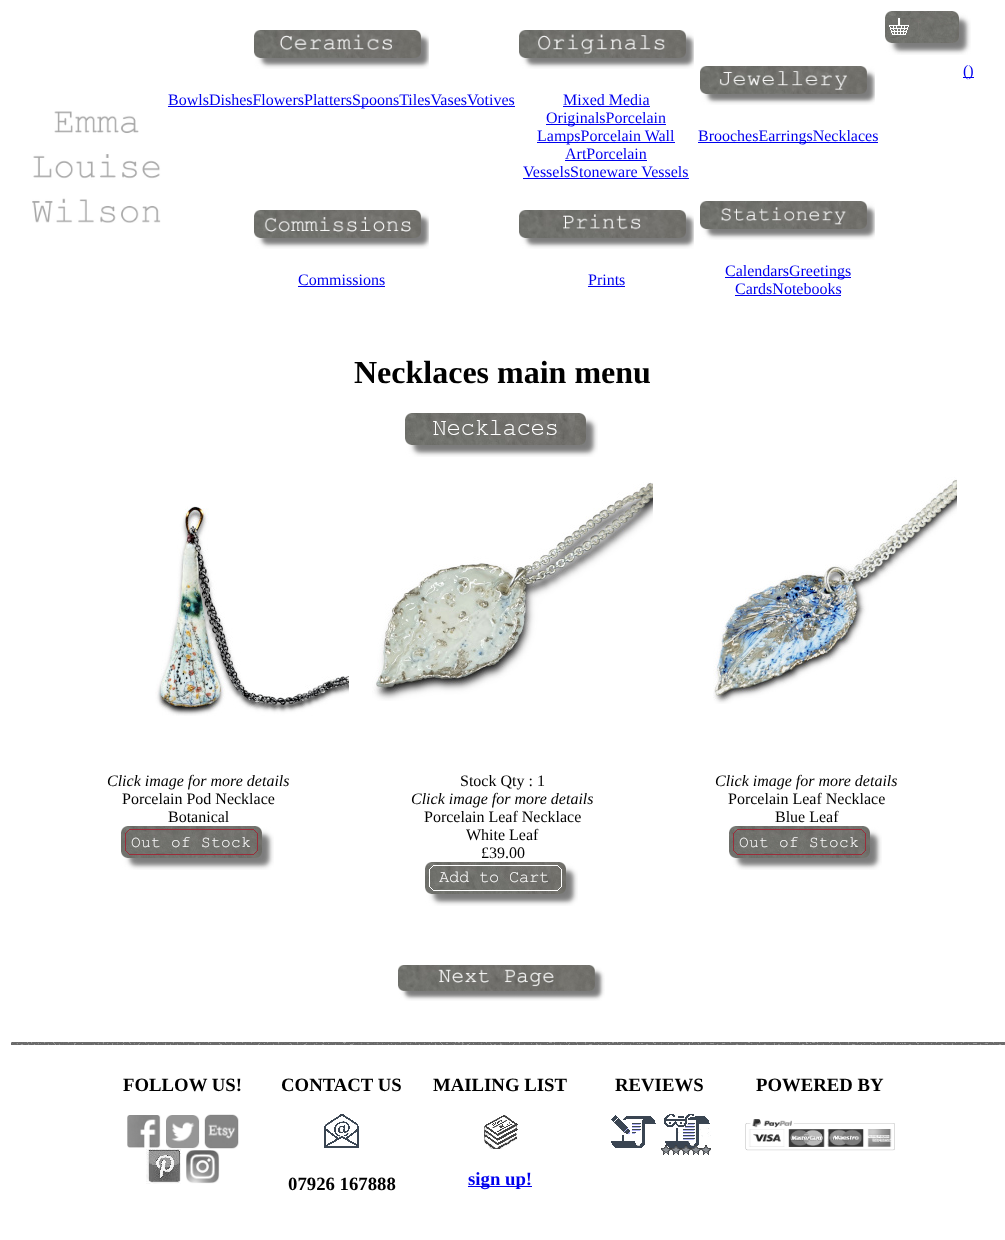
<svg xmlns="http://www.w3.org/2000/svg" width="1005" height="1240">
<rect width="100%" height="100%" fill="#fff"/>
<image x="885" y="11" width="86" height="44" href="media/1.png"/>
<rect x="963" y="77" width="11" height="1" fill="#00e"/>
<text x="963" y="76" style="font-family:Liberation Serif;font-size:16px;fill:#00e">()</text>
<image x="32" y="111" width="129" height="112" href="media/2.png"/>
<image x="254" y="30" width="175" height="39" href="media/3.png"/>
<rect x="168" y="106" width="347" height="1" fill="#00e"/>
<text x="168" y="105" style="font-family:Liberation Serif;font-size:16px;fill:#00e">BowlsDishesFlowersPlattersSpoonsTilesVasesVotives</text>
<image x="519" y="30" width="175" height="39" href="media/4.png"/>
<text x="563" y="105" style="font-family:Liberation Serif;font-size:16px;fill:#00e">Mixed Media</text>
<rect x="563" y="106" width="87" height="1" fill="#00e"/>
<rect x="546" y="124" width="120" height="1" fill="#00e"/>
<text x="546" y="123" style="font-family:Liberation Serif;font-size:16px;fill:#00e">OriginalsPorcelain</text>
<rect x="537" y="142" width="138" height="1" fill="#00e"/>
<text x="537" y="141" style="font-family:Liberation Serif;font-size:16px;fill:#00e">LampsPorcelain Wall</text>
<text x="565" y="159" style="font-family:Liberation Serif;font-size:16px;fill:#00e">ArtPorcelain</text>
<rect x="565" y="160" width="82" height="1" fill="#00e"/>
<text x="523" y="177" style="font-family:Liberation Serif;font-size:16px;fill:#00e">VesselsStoneware Vessels</text>
<rect x="523" y="178" width="166" height="1" fill="#00e"/>
<image x="700" y="66" width="175" height="39" href="media/5.png"/>
<rect x="698" y="142" width="180" height="1" fill="#00e"/>
<text x="698" y="141" style="font-family:Liberation Serif;font-size:16px;fill:#00e">BroochesEarringsNecklaces</text>
<image x="254" y="210" width="175" height="39" href="media/6.png"/>
<text x="298" y="285" style="font-family:Liberation Serif;font-size:16px;fill:#00e">Commissions</text>
<rect x="298" y="286" width="87" height="1" fill="#00e"/>
<image x="519" y="210" width="175" height="39" href="media/7.png"/>
<text x="588" y="285" style="font-family:Liberation Serif;font-size:16px;fill:#00e">Prints</text>
<rect x="588" y="286" width="37" height="1" fill="#00e"/>
<image x="700" y="201" width="175" height="39" href="media/8.png"/>
<rect x="725" y="277" width="126" height="1" fill="#00e"/>
<text x="725" y="276" style="font-family:Liberation Serif;font-size:16px;fill:#00e">CalendarsGreetings</text>
<text x="735" y="294" style="font-family:Liberation Serif;font-size:16px;fill:#00e">CardsNotebooks</text>
<rect x="735" y="295" width="106" height="1" fill="#00e"/>
<text x="354" y="383" style="font-family:Liberation Serif;font-size:32px;font-weight:bold;fill:#000">Necklaces main menu</text>
<image x="405" y="413" width="193" height="44" href="media/9.png"/>
<image x="155" y="506" width="194" height="210" href="media/10.png"/>
<text x="107" y="786" style="font-family:Liberation Serif;font-size:16px;font-style:italic;fill:#000">Click image for more details</text>
<text x="122" y="804" style="font-family:Liberation Serif;font-size:16px;fill:#000">Porcelain Pod Necklace</text>
<text x="168" y="822" style="font-family:Liberation Serif;font-size:16px;fill:#000">Botanical</text>
<image x="121" y="826" width="153" height="44" href="media/11.png"/>
<image x="372" y="482" width="281" height="219" href="media/12.png"/>
<text x="460" y="786" style="font-family:Liberation Serif;font-size:16px;fill:#000">Stock Qty : 1</text>
<text x="411" y="804" style="font-family:Liberation Serif;font-size:16px;font-style:italic;fill:#000">Click image for more details</text>
<text x="424" y="822" style="font-family:Liberation Serif;font-size:16px;fill:#000">Porcelain Leaf Necklace</text>
<text x="466" y="840" style="font-family:Liberation Serif;font-size:16px;fill:#000">White Leaf</text>
<text x="481" y="858" style="font-family:Liberation Serif;font-size:16px;fill:#000">£39.00</text>
<image x="425" y="862" width="153" height="44" href="media/13.png"/>
<image x="713" y="477" width="244" height="227" href="media/14.png"/>
<text x="715" y="786" style="font-family:Liberation Serif;font-size:16px;font-style:italic;fill:#000">Click image for more details</text>
<text x="728" y="804" style="font-family:Liberation Serif;font-size:16px;fill:#000">Porcelain Leaf Necklace</text>
<text x="775" y="822" style="font-family:Liberation Serif;font-size:16px;fill:#000">Blue Leaf</text>
<image x="729" y="826" width="153" height="44" href="media/11.png"/>
<image x="398" y="965" width="207" height="36" href="media/15.png"/>
<image x="11" y="1042" width="994" height="3" href="media/16.png"/>
<text x="123" y="1091" style="font-family:Liberation Serif;font-size:18.75px;font-weight:bold;fill:#000">FOLLOW US!</text>
<image x="127" y="1115" width="34" height="33" href="media/17.png"/>
<image x="166" y="1115" width="34" height="34" href="media/18.png"/>
<image x="204" y="1114" width="35" height="35" href="media/19.png"/>
<image x="146" y="1149" width="35" height="35" href="media/20.png"/>
<image x="186" y="1150" width="34" height="34" href="media/21.png"/>
<text x="281" y="1091" style="font-family:Liberation Serif;font-size:18.75px;font-weight:bold;fill:#000">CONTACT US</text>
<image x="324" y="1114" width="35" height="34" href="media/22.png"/>
<text x="288" y="1190" style="font-family:Liberation Serif;font-size:18.75px;font-weight:bold;fill:#000">07926 167888</text>
<text x="433" y="1091" style="font-family:Liberation Serif;font-size:18.75px;font-weight:bold;fill:#000">MAILING LIST</text>
<image x="483" y="1115" width="35" height="34" href="media/23.png"/>
<rect x="468" y="1186" width="64" height="1" fill="#00e"/>
<text x="468" y="1185" style="font-family:Liberation Serif;font-size:18.75px;font-weight:bold;fill:#00e">sign up!</text>
<text x="615" y="1091" style="font-family:Liberation Serif;font-size:18.75px;font-weight:bold;fill:#000">REVIEWS</text>
<image x="611" y="1115" width="45" height="33" href="media/24.png"/>
<image x="661" y="1114" width="50" height="41" href="media/25.png"/>
<text x="756" y="1091" style="font-family:Liberation Serif;font-size:18.75px;font-weight:bold;fill:#000">POWERED BY</text>
<image x="745" y="1119" width="150" height="32" href="media/26.png"/>
</svg>
